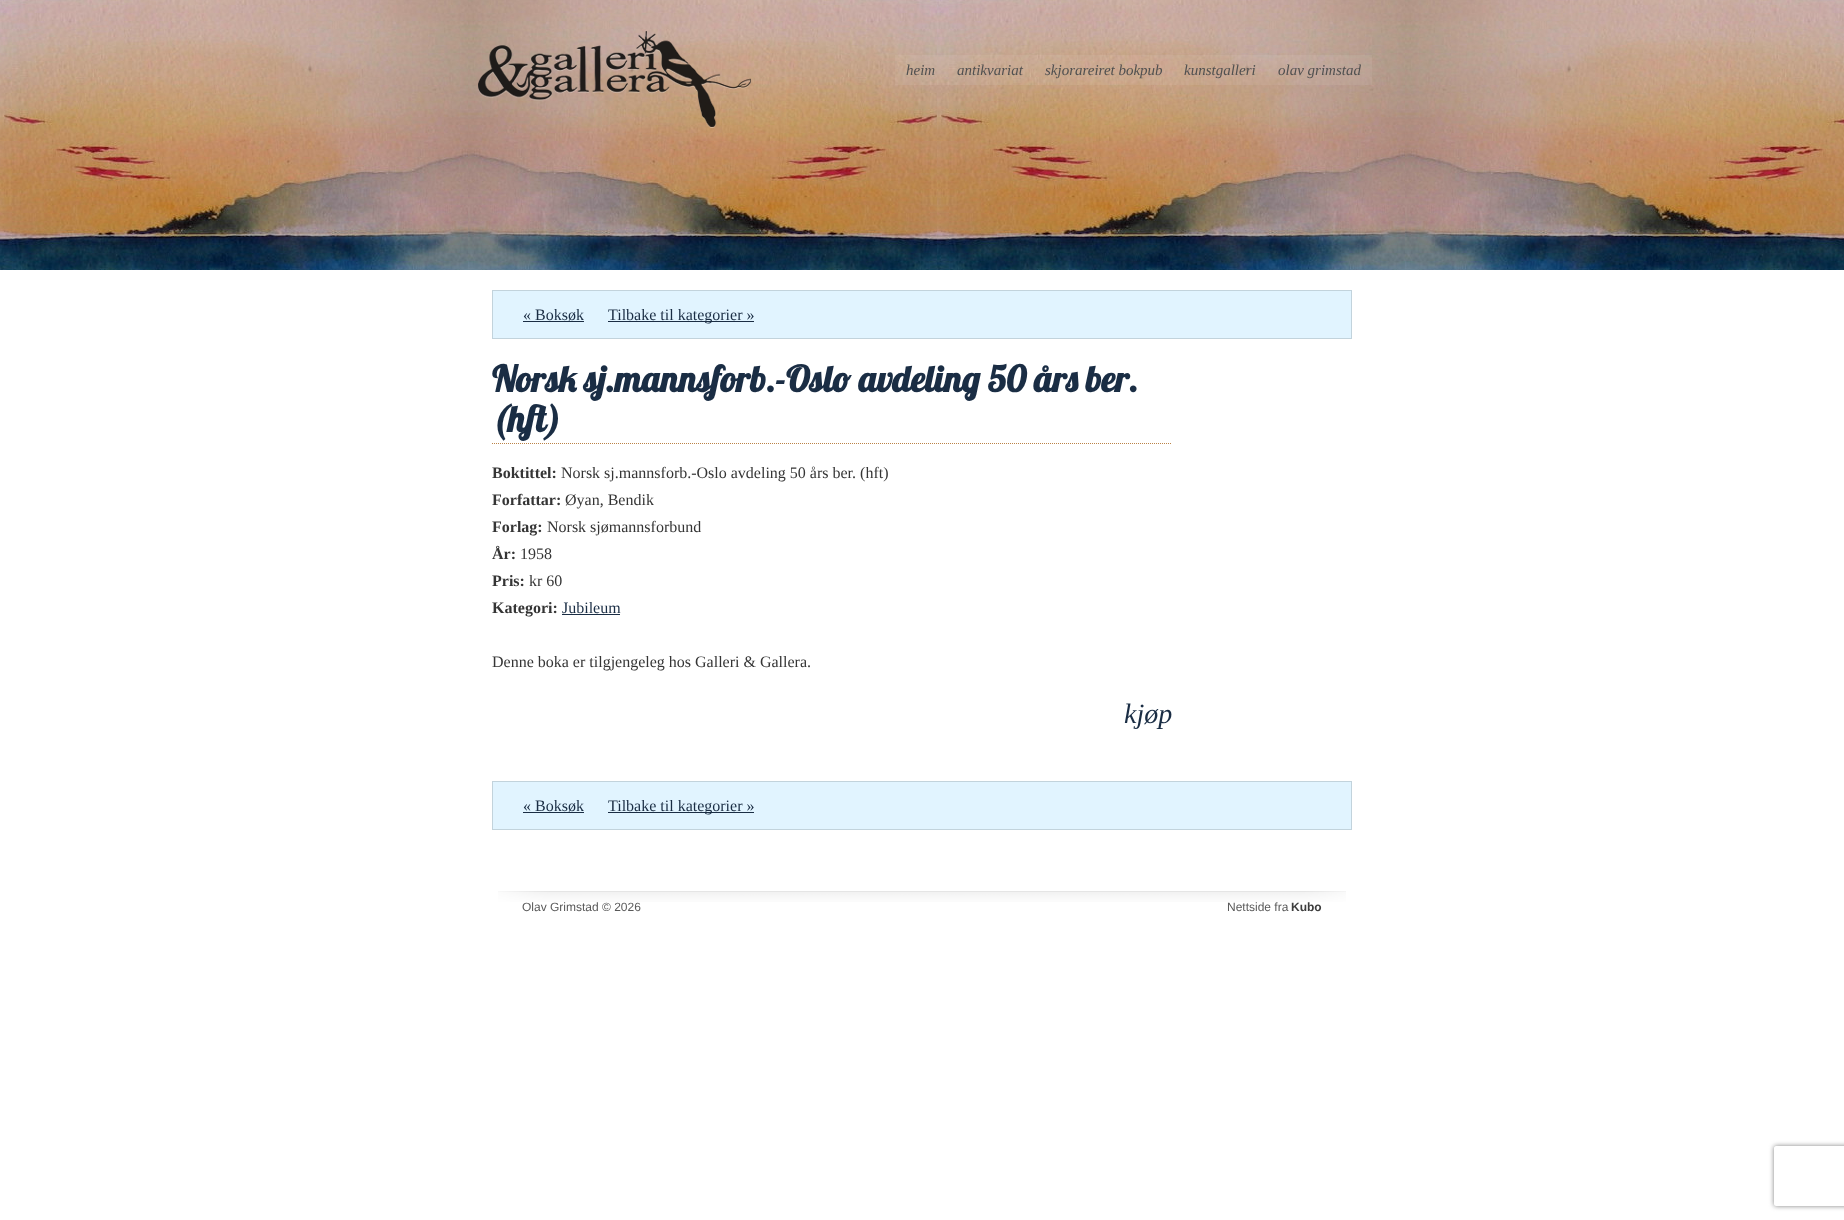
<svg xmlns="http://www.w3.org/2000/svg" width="1844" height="1220">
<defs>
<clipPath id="clip1"><path d="M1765 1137h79v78h-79zm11 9h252c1 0 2 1 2 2v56c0 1-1 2-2 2h-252c-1 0-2-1-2-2v-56c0-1 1-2 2-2z" clip-rule="evenodd"/></clipPath>
</defs>
<rect width="100%" height="100%" fill="#fff"/>
<image x="0" y="0" width="1844" height="270" href="media/1.png"/>
<image x="478" y="31" width="273" height="97" href="media/2.png"/>
<rect x="895" y="55" width="477" height="30" fill="#ffffff12"/>
<text x="906" y="75" style="font-family:Liberation Serif;font-size:15px;font-style:italic;fill:#505050">heim</text>
<text x="957" y="75" style="font-family:Liberation Serif;font-size:15px;font-style:italic;fill:#505050">antikvariat</text>
<text x="1045" y="75" style="font-family:Liberation Serif;font-size:15px;font-style:italic;fill:#505050">skjorareiret bokpub</text>
<text x="1184" y="75" style="font-family:Liberation Serif;font-size:15px;font-style:italic;fill:#505050">kunstgalleri</text>
<text x="1278" y="75" style="font-family:Liberation Serif;font-size:15px;font-style:italic;fill:#505050">olav grimstad</text>
<rect x="492.5" y="290.5" width="859" height="48" fill="#e1f4ff" stroke="#c2d3dc"/>
<text x="523" y="320" style="font-family:Liberation Serif;font-size:16px;fill:#1a2d44">« Boksøk</text>
<rect x="523" y="321" width="61" height="1" fill="#1a2d44"/>
<rect x="608" y="321" width="146" height="1" fill="#1a2d44"/>
<text x="608" y="320" style="font-family:Liberation Serif;font-size:16px;fill:#1a2d44">Tilbake til kategorier »</text>
<path d="M492 443.5h680" fill="none" stroke="#bb8347" stroke-dasharray="1 1"/>
<text x="492" y="392" style="font-family:Lobster;font-size:36px;font-weight:bold;fill:#1a2d44">Norsk sj.mannsforb.-Oslo avdeling 50 års ber.</text>
<text x="492" y="432" style="font-family:Lobster;font-size:36px;font-weight:bold;fill:#1a2d44">(hft)</text>
<text x="492" y="478" style="font-family:Liberation Serif;font-size:16px;font-weight:bold;fill:#353535">Boktittel:</text>
<text x="561" y="478" style="font-family:Liberation Serif;font-size:16px;fill:#353535">Norsk sj.mannsforb.-Oslo avdeling 50 års ber. (hft)</text>
<text x="492" y="505" style="font-family:Liberation Serif;font-size:16px;font-weight:bold;fill:#353535">Forfattar:</text>
<text x="565" y="505" style="font-family:Liberation Serif;font-size:16px;fill:#353535">Øyan, Bendik</text>
<text x="492" y="532" style="font-family:Liberation Serif;font-size:16px;font-weight:bold;fill:#353535">Forlag:</text>
<text x="547" y="532" style="font-family:Liberation Serif;font-size:16px;fill:#353535">Norsk sjømannsforbund</text>
<text x="492" y="559" style="font-family:Liberation Serif;font-size:16px;font-weight:bold;fill:#353535">År:</text>
<text x="520" y="559" style="font-family:Liberation Serif;font-size:16px;fill:#353535">1958</text>
<text x="492" y="586" style="font-family:Liberation Serif;font-size:16px;font-weight:bold;fill:#353535">Pris:</text>
<text x="529" y="586" style="font-family:Liberation Serif;font-size:16px;fill:#353535">kr 60</text>
<text x="492" y="613" style="font-family:Liberation Serif;font-size:16px;font-weight:bold;fill:#353535">Kategori:</text>
<text x="562" y="613" style="font-family:Liberation Serif;font-size:16px;fill:#1a2d44">Jubileum</text>
<rect x="562" y="614" width="58" height="1" fill="#1a2d44"/>
<text x="492" y="667" style="font-family:Liberation Serif;font-size:16px;fill:#353535">Denne boka er tilgjengeleg hos Galleri &amp; Gallera.</text>
<text x="1124" y="723" style="font-family:Liberation Serif;font-size:28px;font-style:italic;fill:#1a2d44">kjøp</text>
<rect x="492.5" y="781.5" width="859" height="48" fill="#e1f4ff" stroke="#c2d3dc"/>
<text x="523" y="811" style="font-family:Liberation Serif;font-size:16px;fill:#1a2d44">« Boksøk</text>
<rect x="523" y="812" width="61" height="1" fill="#1a2d44"/>
<rect x="608" y="812" width="146" height="1" fill="#1a2d44"/>
<text x="608" y="811" style="font-family:Liberation Serif;font-size:16px;fill:#1a2d44">Tilbake til kategorier »</text>
<image x="498" y="891" width="848" height="11" href="media/3.png"/>
<text x="522" y="911" style="font-family:Liberation Sans;font-size:12px;fill:#595959">Olav Grimstad © 2026</text>
<text x="1227" y="911" style="font-family:Liberation Sans;font-size:12px;fill:#595959">Nettside fra</text>
<text x="1291" y="911" style="font-family:Liberation Sans;font-size:12px;font-weight:bold;fill:#3d3d3d">Kubo</text>
<g clip-path="url(#clip1)">
<rect x="1774" y="1146" width="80" height="60" rx="2" fill="#808080" filter="blur(2.5px)"/>
</g>
</svg>
